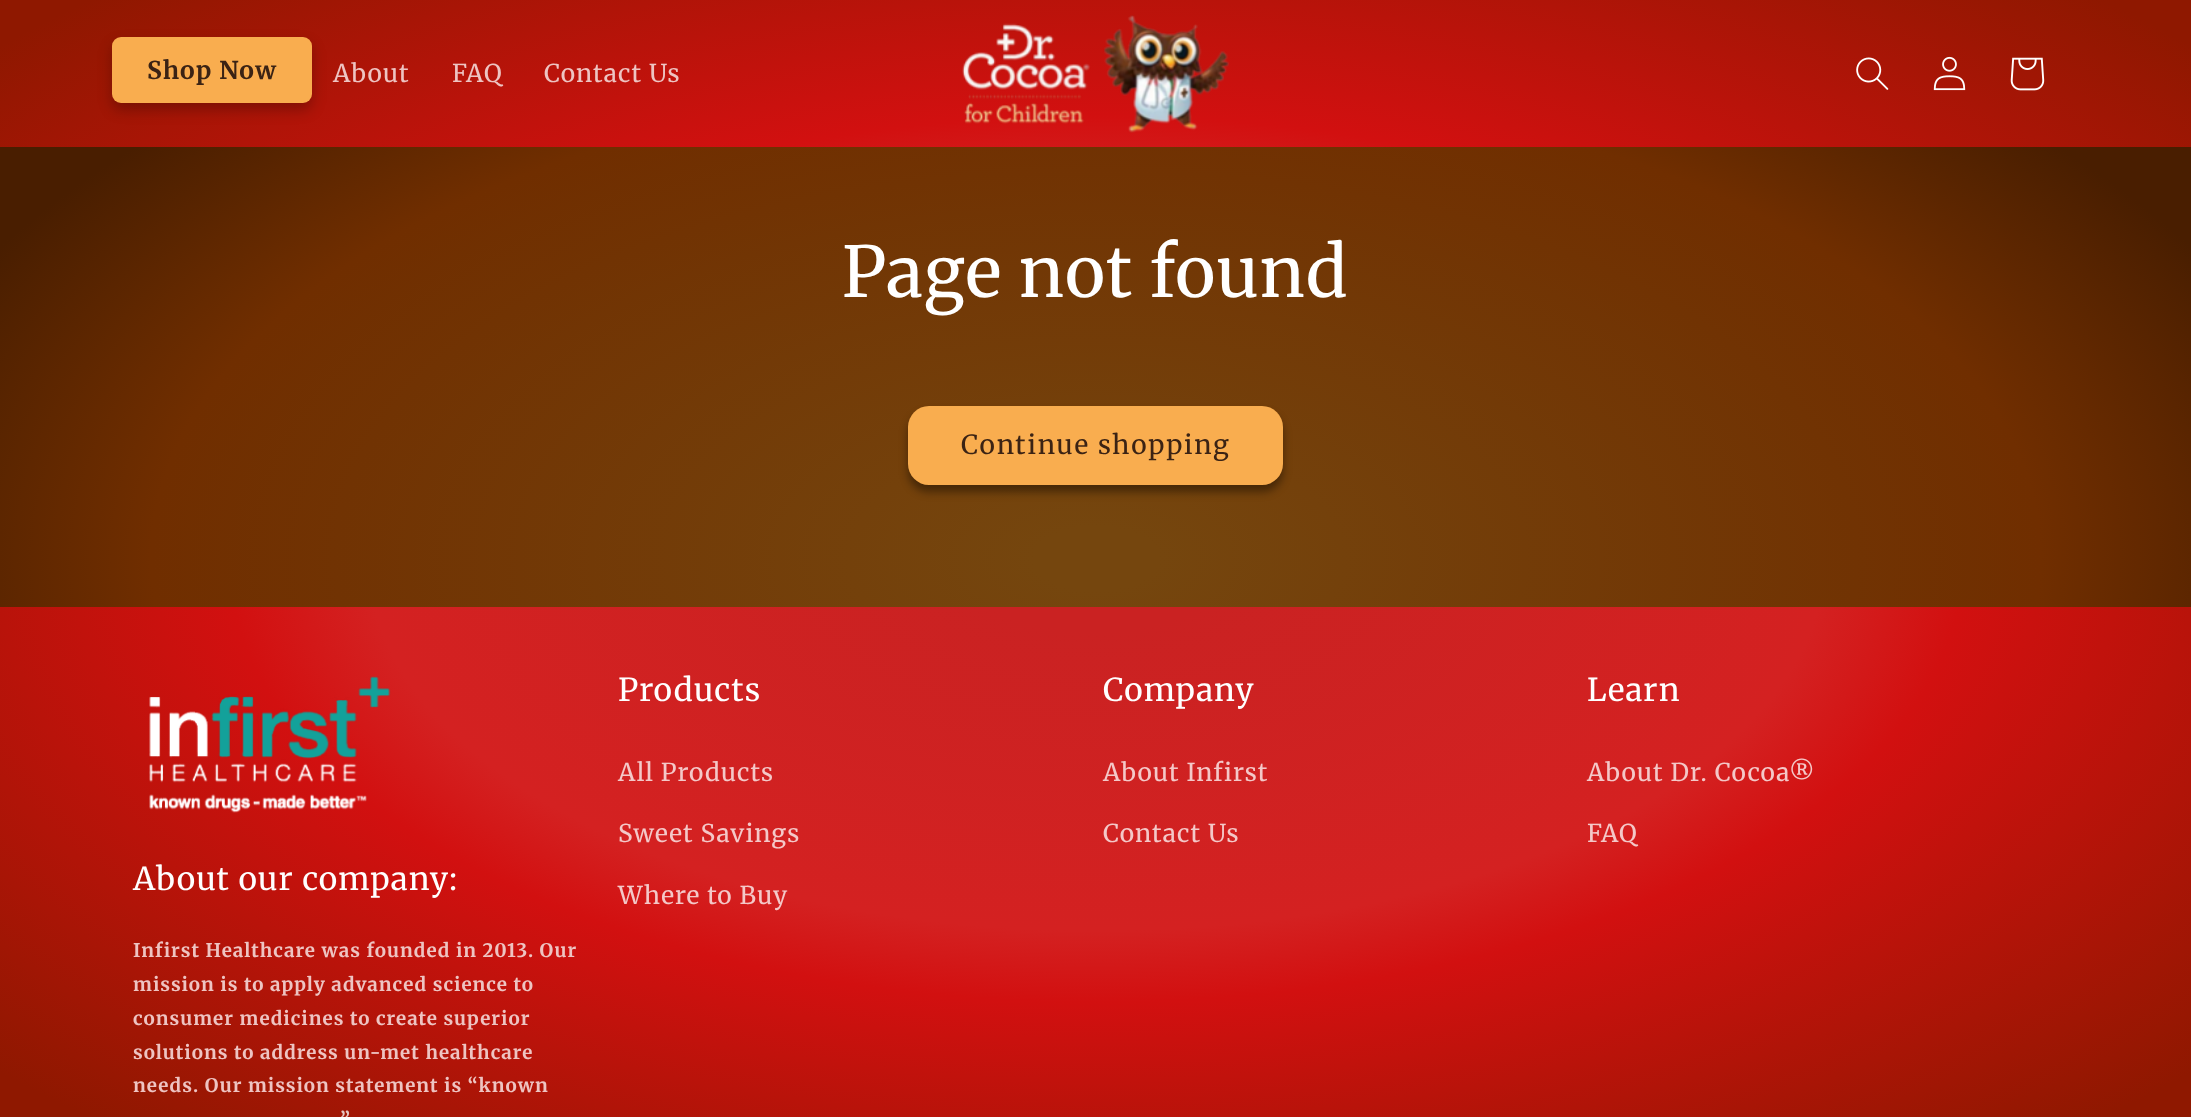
<svg xmlns="http://www.w3.org/2000/svg" width="2191" height="1117">
<defs>
<radialGradient id="g1" gradientUnits="userSpaceOnUse" cx="0" cy="0" r="1" gradientTransform="matrix(1549 0 0 791 1096 559)"><stop offset="0.04" stop-color="#75460e"/><stop offset="0.61" stop-color="#702e00"/><stop offset="0.81" stop-color="#491e00"/></radialGradient>
<radialGradient id="g2" gradientUnits="userSpaceOnUse" cx="0" cy="0" r="1" gradientTransform="matrix(1549 0 0 791 1096 559)"><stop offset="0.09" stop-color="#ca2222"/><stop offset="0.47" stop-color="#d42121"/><stop offset="0.56" stop-color="#d21010"/><stop offset="0.96" stop-color="#8f1800"/></radialGradient>
</defs>
<rect width="100%" height="100%" fill="#fff"/>
<rect y="147" width="2191" height="460" fill="url(#g1)"/>
<rect width="2191" height="147" fill="url(#g2)"/>
<rect x="112" y="44" width="200" height="66" rx="9" fill="#00000040" filter="blur(7px)"/>
<rect x="112" y="37" width="200" height="66" rx="9" fill="#f9ad4f"/>
<text x="147" y="79" style="font-family:Merriweather;font-size:24.5px;font-weight:bold;letter-spacing:1.05px;fill:#3b2314">Shop Now</text>
<text x="333" y="82" style="font-family:'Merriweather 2';font-size:24.5px;letter-spacing:1.05px;fill:#eec4c2">About</text>
<text x="452" y="82" style="font-family:'Merriweather 2';font-size:24.5px;letter-spacing:1.05px;fill:#eec4c2">FAQ</text>
<text x="544" y="82" style="font-family:'Merriweather 2';font-size:24.5px;letter-spacing:1.05px;fill:#eec4c2">Contact Us</text>
<image x="962" y="15" width="267" height="118" href="media/1.png"/>
<image x="1856" y="57" width="33" height="33" href="media/2.png"/>
<image x="1933" y="56" width="33" height="35" href="media/3.png"/>
<image x="2010" y="57" width="35" height="34" href="media/4.png"/>
<text x="842" y="297" style="font-family:Merriweather;font-size:70px;letter-spacing:1.05px;fill:#fff">Page not found</text>
<rect x="908" y="413" width="375" height="79" rx="21" fill="#00000066" filter="blur(4.5px)"/>
<rect x="908" y="406" width="375" height="79" rx="21" fill="#f9ad4f"/>
<text x="961" y="454" style="font-family:'Merriweather 2';font-size:26.25px;letter-spacing:1.75px;fill:#3b2314">Continue shopping</text>
<rect y="607" width="2191" height="510" fill="url(#g2)"/>
<text x="618" y="701" style="font-family:'Merriweather 2';font-size:31.5px;letter-spacing:1.05px;fill:#fff">Products</text>
<text x="618" y="781" style="font-family:'Merriweather 2';font-size:24.5px;letter-spacing:1.05px;fill:#f4c8c8">All Products</text>
<text x="618" y="842" style="font-family:'Merriweather 2';font-size:24.5px;letter-spacing:1.05px;fill:#f4c8c8">Sweet Savings</text>
<text x="618" y="904" style="font-family:'Merriweather 2';font-size:24.5px;letter-spacing:1.05px;fill:#f4c8c8">Where to Buy</text>
<text x="1103" y="701" style="font-family:'Merriweather 2';font-size:31.5px;letter-spacing:1.05px;fill:#fff">Company</text>
<text x="1103" y="781" style="font-family:'Merriweather 2';font-size:24.5px;letter-spacing:1.05px;fill:#f4c8c8">About Infirst</text>
<text x="1103" y="842" style="font-family:'Merriweather 2';font-size:24.5px;letter-spacing:1.05px;fill:#f4c8c8">Contact Us</text>
<text x="1587" y="701" style="font-family:'Merriweather 2';font-size:31.5px;letter-spacing:1.05px;fill:#fff">Learn</text>
<text x="1587" y="781" style="font-family:'Merriweather 2';font-size:24.5px;letter-spacing:1.05px;fill:#f4c8c8">About Dr. Cocoa®</text>
<text x="1587" y="842" style="font-family:'Merriweather 2';font-size:24.5px;letter-spacing:1.05px;fill:#f4c8c8">FAQ</text>
<image x="149" y="676" width="242" height="137" href="media/5.png"/>
<text x="133" y="890" style="font-family:'Merriweather 2';font-size:31.5px;letter-spacing:1.05px;fill:#fff">About our company:</text>
<text x="133" y="957" style="font-family:Merriweather;font-size:18.75px;font-weight:bold;letter-spacing:1.05px;fill:#eec4c2">Infirst Healthcare was founded in 2013. Our</text>
<text x="133" y="991" style="font-family:Merriweather;font-size:18.75px;font-weight:bold;letter-spacing:1.05px;fill:#eec4c2">mission is to apply advanced science to</text>
<text x="133" y="1025" style="font-family:Merriweather;font-size:18.75px;font-weight:bold;letter-spacing:1.05px;fill:#eec4c2">consumer medicines to create superior</text>
<text x="133" y="1059" style="font-family:Merriweather;font-size:18.75px;font-weight:bold;letter-spacing:1.05px;fill:#eec4c2">solutions to address un-met healthcare</text>
<text x="133" y="1092" style="font-family:Merriweather;font-size:18.75px;font-weight:bold;letter-spacing:1.05px;fill:#eec4c2">needs. Our mission statement is “known</text>
<text x="340" y="1126" style="font-family:Merriweather;font-size:18.75px;font-weight:bold;letter-spacing:1.05px;fill:#e6c5c0">”</text>
</svg>
